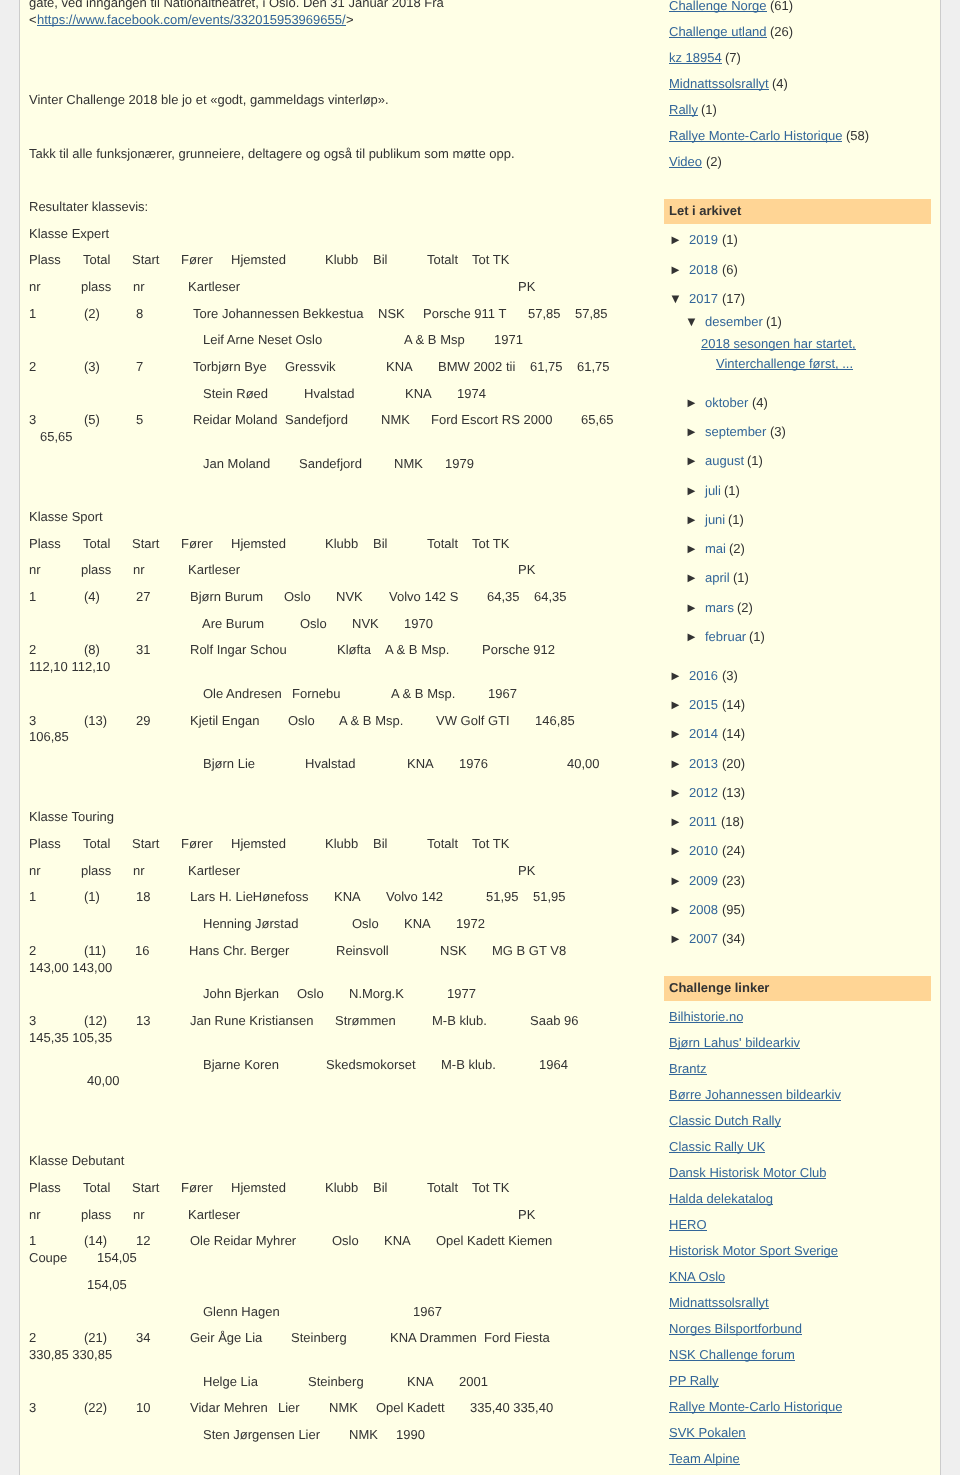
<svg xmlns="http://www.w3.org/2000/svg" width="960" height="1475">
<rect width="100%" height="100%" fill="#efefef"/>
<rect x="20" width="920" height="1475" fill="#ffffe6"/>
<rect x="940" width="1" height="1475" fill="#ccc"/>
<rect x="19" width="1" height="1475" fill="#ccc"/>
<text x="29" y="7" style="font-family:Liberation Sans;font-size:13px;fill:#333">gate, ved inngangen til Nationaltheatret, i Oslo. Den 31 Januar 2018 Fra</text>
<text x="29" y="24" style="font-family:Liberation Sans;font-size:13px;fill:#333">&lt;</text>
<rect x="37" y="25" width="309" height="1" fill="#369"/>
<text x="37" y="24" style="font-family:Liberation Sans;font-size:13px;fill:#369">https://www.facebook.com/events/332015953969655/</text>
<text x="346" y="24" style="font-family:Liberation Sans;font-size:13px;fill:#333">&gt;</text>
<text x="29" y="104" style="font-family:Liberation Sans;font-size:13px;fill:#333">Vinter Challenge 2018 ble jo et «godt, gammeldags vinterløp».</text>
<text x="29" y="158" style="font-family:Liberation Sans;font-size:13px;fill:#333">Takk til alle funksjonærer, grunneiere, deltagere og også til publikum som møtte opp.</text>
<text x="29" y="211" style="font-family:Liberation Sans;font-size:13px;fill:#333">Resultater klassevis:</text>
<text x="29" y="238" style="font-family:Liberation Sans;font-size:13px;fill:#333">Klasse Expert</text>
<text x="29" y="264" style="font-family:Liberation Sans;font-size:13px;fill:#333">Plass</text>
<text x="83" y="264" style="font-family:Liberation Sans;font-size:13px;fill:#333">Total</text>
<text x="132" y="264" style="font-family:Liberation Sans;font-size:13px;fill:#333">Start</text>
<text x="181" y="264" style="font-family:Liberation Sans;font-size:13px;fill:#333">Fører</text>
<text x="231" y="264" style="font-family:Liberation Sans;font-size:13px;fill:#333">Hjemsted</text>
<text x="325" y="264" style="font-family:Liberation Sans;font-size:13px;fill:#333">Klubb</text>
<text x="373" y="264" style="font-family:Liberation Sans;font-size:13px;fill:#333">Bil</text>
<text x="427" y="264" style="font-family:Liberation Sans;font-size:13px;fill:#333">Totalt</text>
<text x="472" y="264" style="font-family:Liberation Sans;font-size:13px;fill:#333">Tot TK</text>
<text x="29" y="291" style="font-family:Liberation Sans;font-size:13px;fill:#333">nr</text>
<text x="81" y="291" style="font-family:Liberation Sans;font-size:13px;fill:#333">plass</text>
<text x="133" y="291" style="font-family:Liberation Sans;font-size:13px;fill:#333">nr</text>
<text x="188" y="291" style="font-family:Liberation Sans;font-size:13px;fill:#333">Kartleser</text>
<text x="518" y="291" style="font-family:Liberation Sans;font-size:13px;fill:#333">PK</text>
<text x="29" y="318" style="font-family:Liberation Sans;font-size:13px;fill:#333">1</text>
<text x="84" y="318" style="font-family:Liberation Sans;font-size:13px;fill:#333">(2)</text>
<text x="136" y="318" style="font-family:Liberation Sans;font-size:13px;fill:#333">8</text>
<text x="193" y="318" style="font-family:Liberation Sans;font-size:13px;fill:#333">Tore Johannessen Bekkestua</text>
<text x="378" y="318" style="font-family:Liberation Sans;font-size:13px;fill:#333">NSK</text>
<text x="423" y="318" style="font-family:Liberation Sans;font-size:13px;fill:#333">Porsche 911 T</text>
<text x="528" y="318" style="font-family:Liberation Sans;font-size:13px;fill:#333">57,85</text>
<text x="575" y="318" style="font-family:Liberation Sans;font-size:13px;fill:#333">57,85</text>
<text x="203" y="344" style="font-family:Liberation Sans;font-size:13px;fill:#333">Leif Arne Neset Oslo</text>
<text x="404" y="344" style="font-family:Liberation Sans;font-size:13px;fill:#333">A &amp; B Msp</text>
<text x="494" y="344" style="font-family:Liberation Sans;font-size:13px;fill:#333">1971</text>
<text x="29" y="371" style="font-family:Liberation Sans;font-size:13px;fill:#333">2</text>
<text x="84" y="371" style="font-family:Liberation Sans;font-size:13px;fill:#333">(3)</text>
<text x="136" y="371" style="font-family:Liberation Sans;font-size:13px;fill:#333">7</text>
<text x="193" y="371" style="font-family:Liberation Sans;font-size:13px;fill:#333">Torbjørn Bye</text>
<text x="285" y="371" style="font-family:Liberation Sans;font-size:13px;fill:#333">Gressvik</text>
<text x="386" y="371" style="font-family:Liberation Sans;font-size:13px;fill:#333">KNA</text>
<text x="438" y="371" style="font-family:Liberation Sans;font-size:13px;fill:#333">BMW 2002 tii</text>
<text x="530" y="371" style="font-family:Liberation Sans;font-size:13px;fill:#333">61,75</text>
<text x="577" y="371" style="font-family:Liberation Sans;font-size:13px;fill:#333">61,75</text>
<text x="203" y="398" style="font-family:Liberation Sans;font-size:13px;fill:#333">Stein Røed</text>
<text x="304" y="398" style="font-family:Liberation Sans;font-size:13px;fill:#333">Hvalstad</text>
<text x="405" y="398" style="font-family:Liberation Sans;font-size:13px;fill:#333">KNA</text>
<text x="457" y="398" style="font-family:Liberation Sans;font-size:13px;fill:#333">1974</text>
<text x="29" y="424" style="font-family:Liberation Sans;font-size:13px;fill:#333">3</text>
<text x="84" y="424" style="font-family:Liberation Sans;font-size:13px;fill:#333">(5)</text>
<text x="136" y="424" style="font-family:Liberation Sans;font-size:13px;fill:#333">5</text>
<text x="193" y="424" style="font-family:Liberation Sans;font-size:13px;fill:#333">Reidar Moland</text>
<text x="285" y="424" style="font-family:Liberation Sans;font-size:13px;fill:#333">Sandefjord</text>
<text x="381" y="424" style="font-family:Liberation Sans;font-size:13px;fill:#333">NMK</text>
<text x="431" y="424" style="font-family:Liberation Sans;font-size:13px;fill:#333">Ford Escort RS 2000</text>
<text x="581" y="424" style="font-family:Liberation Sans;font-size:13px;fill:#333">65,65</text>
<text x="40" y="441" style="font-family:Liberation Sans;font-size:13px;fill:#333">65,65</text>
<text x="203" y="468" style="font-family:Liberation Sans;font-size:13px;fill:#333">Jan Moland</text>
<text x="299" y="468" style="font-family:Liberation Sans;font-size:13px;fill:#333">Sandefjord</text>
<text x="394" y="468" style="font-family:Liberation Sans;font-size:13px;fill:#333">NMK</text>
<text x="445" y="468" style="font-family:Liberation Sans;font-size:13px;fill:#333">1979</text>
<text x="29" y="521" style="font-family:Liberation Sans;font-size:13px;fill:#333">Klasse Sport</text>
<text x="29" y="548" style="font-family:Liberation Sans;font-size:13px;fill:#333">Plass</text>
<text x="83" y="548" style="font-family:Liberation Sans;font-size:13px;fill:#333">Total</text>
<text x="132" y="548" style="font-family:Liberation Sans;font-size:13px;fill:#333">Start</text>
<text x="181" y="548" style="font-family:Liberation Sans;font-size:13px;fill:#333">Fører</text>
<text x="231" y="548" style="font-family:Liberation Sans;font-size:13px;fill:#333">Hjemsted</text>
<text x="325" y="548" style="font-family:Liberation Sans;font-size:13px;fill:#333">Klubb</text>
<text x="373" y="548" style="font-family:Liberation Sans;font-size:13px;fill:#333">Bil</text>
<text x="427" y="548" style="font-family:Liberation Sans;font-size:13px;fill:#333">Totalt</text>
<text x="472" y="548" style="font-family:Liberation Sans;font-size:13px;fill:#333">Tot TK</text>
<text x="29" y="574" style="font-family:Liberation Sans;font-size:13px;fill:#333">nr</text>
<text x="81" y="574" style="font-family:Liberation Sans;font-size:13px;fill:#333">plass</text>
<text x="133" y="574" style="font-family:Liberation Sans;font-size:13px;fill:#333">nr</text>
<text x="188" y="574" style="font-family:Liberation Sans;font-size:13px;fill:#333">Kartleser</text>
<text x="518" y="574" style="font-family:Liberation Sans;font-size:13px;fill:#333">PK</text>
<text x="29" y="601" style="font-family:Liberation Sans;font-size:13px;fill:#333">1</text>
<text x="84" y="601" style="font-family:Liberation Sans;font-size:13px;fill:#333">(4)</text>
<text x="136" y="601" style="font-family:Liberation Sans;font-size:13px;fill:#333">27</text>
<text x="190" y="601" style="font-family:Liberation Sans;font-size:13px;fill:#333">Bjørn Burum</text>
<text x="284" y="601" style="font-family:Liberation Sans;font-size:13px;fill:#333">Oslo</text>
<text x="336" y="601" style="font-family:Liberation Sans;font-size:13px;fill:#333">NVK</text>
<text x="389" y="601" style="font-family:Liberation Sans;font-size:13px;fill:#333">Volvo 142 S</text>
<text x="487" y="601" style="font-family:Liberation Sans;font-size:13px;fill:#333">64,35</text>
<text x="534" y="601" style="font-family:Liberation Sans;font-size:13px;fill:#333">64,35</text>
<text x="202" y="628" style="font-family:Liberation Sans;font-size:13px;fill:#333">Are Burum</text>
<text x="300" y="628" style="font-family:Liberation Sans;font-size:13px;fill:#333">Oslo</text>
<text x="352" y="628" style="font-family:Liberation Sans;font-size:13px;fill:#333">NVK</text>
<text x="404" y="628" style="font-family:Liberation Sans;font-size:13px;fill:#333">1970</text>
<text x="29" y="654" style="font-family:Liberation Sans;font-size:13px;fill:#333">2</text>
<text x="84" y="654" style="font-family:Liberation Sans;font-size:13px;fill:#333">(8)</text>
<text x="136" y="654" style="font-family:Liberation Sans;font-size:13px;fill:#333">31</text>
<text x="190" y="654" style="font-family:Liberation Sans;font-size:13px;fill:#333">Rolf Ingar Schou</text>
<text x="337" y="654" style="font-family:Liberation Sans;font-size:13px;fill:#333">Kløfta</text>
<text x="385" y="654" style="font-family:Liberation Sans;font-size:13px;fill:#333">A &amp; B Msp.</text>
<text x="482" y="654" style="font-family:Liberation Sans;font-size:13px;fill:#333">Porsche 912</text>
<text x="29" y="671" style="font-family:Liberation Sans;font-size:13px;fill:#333">112,10 112,10</text>
<text x="203" y="698" style="font-family:Liberation Sans;font-size:13px;fill:#333">Ole Andresen</text>
<text x="292" y="698" style="font-family:Liberation Sans;font-size:13px;fill:#333">Fornebu</text>
<text x="391" y="698" style="font-family:Liberation Sans;font-size:13px;fill:#333">A &amp; B Msp.</text>
<text x="488" y="698" style="font-family:Liberation Sans;font-size:13px;fill:#333">1967</text>
<text x="29" y="725" style="font-family:Liberation Sans;font-size:13px;fill:#333">3</text>
<text x="84" y="725" style="font-family:Liberation Sans;font-size:13px;fill:#333">(13)</text>
<text x="136" y="725" style="font-family:Liberation Sans;font-size:13px;fill:#333">29</text>
<text x="190" y="725" style="font-family:Liberation Sans;font-size:13px;fill:#333">Kjetil Engan</text>
<text x="288" y="725" style="font-family:Liberation Sans;font-size:13px;fill:#333">Oslo</text>
<text x="339" y="725" style="font-family:Liberation Sans;font-size:13px;fill:#333">A &amp; B Msp.</text>
<text x="436" y="725" style="font-family:Liberation Sans;font-size:13px;fill:#333">VW Golf GTI</text>
<text x="535" y="725" style="font-family:Liberation Sans;font-size:13px;fill:#333">146,85</text>
<text x="29" y="741" style="font-family:Liberation Sans;font-size:13px;fill:#333">106,85</text>
<text x="203" y="768" style="font-family:Liberation Sans;font-size:13px;fill:#333">Bjørn Lie</text>
<text x="305" y="768" style="font-family:Liberation Sans;font-size:13px;fill:#333">Hvalstad</text>
<text x="407" y="768" style="font-family:Liberation Sans;font-size:13px;fill:#333">KNA</text>
<text x="459" y="768" style="font-family:Liberation Sans;font-size:13px;fill:#333">1976</text>
<text x="567" y="768" style="font-family:Liberation Sans;font-size:13px;fill:#333">40,00</text>
<text x="29" y="821" style="font-family:Liberation Sans;font-size:13px;fill:#333">Klasse Touring</text>
<text x="29" y="848" style="font-family:Liberation Sans;font-size:13px;fill:#333">Plass</text>
<text x="83" y="848" style="font-family:Liberation Sans;font-size:13px;fill:#333">Total</text>
<text x="132" y="848" style="font-family:Liberation Sans;font-size:13px;fill:#333">Start</text>
<text x="181" y="848" style="font-family:Liberation Sans;font-size:13px;fill:#333">Fører</text>
<text x="231" y="848" style="font-family:Liberation Sans;font-size:13px;fill:#333">Hjemsted</text>
<text x="325" y="848" style="font-family:Liberation Sans;font-size:13px;fill:#333">Klubb</text>
<text x="373" y="848" style="font-family:Liberation Sans;font-size:13px;fill:#333">Bil</text>
<text x="427" y="848" style="font-family:Liberation Sans;font-size:13px;fill:#333">Totalt</text>
<text x="472" y="848" style="font-family:Liberation Sans;font-size:13px;fill:#333">Tot TK</text>
<text x="29" y="875" style="font-family:Liberation Sans;font-size:13px;fill:#333">nr</text>
<text x="81" y="875" style="font-family:Liberation Sans;font-size:13px;fill:#333">plass</text>
<text x="133" y="875" style="font-family:Liberation Sans;font-size:13px;fill:#333">nr</text>
<text x="188" y="875" style="font-family:Liberation Sans;font-size:13px;fill:#333">Kartleser</text>
<text x="518" y="875" style="font-family:Liberation Sans;font-size:13px;fill:#333">PK</text>
<text x="29" y="901" style="font-family:Liberation Sans;font-size:13px;fill:#333">1</text>
<text x="84" y="901" style="font-family:Liberation Sans;font-size:13px;fill:#333">(1)</text>
<text x="136" y="901" style="font-family:Liberation Sans;font-size:13px;fill:#333">18</text>
<text x="190" y="901" style="font-family:Liberation Sans;font-size:13px;fill:#333">Lars H. LieHønefoss</text>
<text x="334" y="901" style="font-family:Liberation Sans;font-size:13px;fill:#333">KNA</text>
<text x="386" y="901" style="font-family:Liberation Sans;font-size:13px;fill:#333">Volvo 142</text>
<text x="486" y="901" style="font-family:Liberation Sans;font-size:13px;fill:#333">51,95</text>
<text x="533" y="901" style="font-family:Liberation Sans;font-size:13px;fill:#333">51,95</text>
<text x="203" y="928" style="font-family:Liberation Sans;font-size:13px;fill:#333">Henning Jørstad</text>
<text x="352" y="928" style="font-family:Liberation Sans;font-size:13px;fill:#333">Oslo</text>
<text x="404" y="928" style="font-family:Liberation Sans;font-size:13px;fill:#333">KNA</text>
<text x="456" y="928" style="font-family:Liberation Sans;font-size:13px;fill:#333">1972</text>
<text x="29" y="955" style="font-family:Liberation Sans;font-size:13px;fill:#333">2</text>
<text x="84" y="955" style="font-family:Liberation Sans;font-size:13px;fill:#333">(11)</text>
<text x="135" y="955" style="font-family:Liberation Sans;font-size:13px;fill:#333">16</text>
<text x="189" y="955" style="font-family:Liberation Sans;font-size:13px;fill:#333">Hans Chr. Berger</text>
<text x="336" y="955" style="font-family:Liberation Sans;font-size:13px;fill:#333">Reinsvoll</text>
<text x="440" y="955" style="font-family:Liberation Sans;font-size:13px;fill:#333">NSK</text>
<text x="492" y="955" style="font-family:Liberation Sans;font-size:13px;fill:#333">MG B GT V8</text>
<text x="29" y="972" style="font-family:Liberation Sans;font-size:13px;fill:#333">143,00 143,00</text>
<text x="203" y="998" style="font-family:Liberation Sans;font-size:13px;fill:#333">John Bjerkan</text>
<text x="297" y="998" style="font-family:Liberation Sans;font-size:13px;fill:#333">Oslo</text>
<text x="349" y="998" style="font-family:Liberation Sans;font-size:13px;fill:#333">N.Morg.K</text>
<text x="447" y="998" style="font-family:Liberation Sans;font-size:13px;fill:#333">1977</text>
<text x="29" y="1025" style="font-family:Liberation Sans;font-size:13px;fill:#333">3</text>
<text x="84" y="1025" style="font-family:Liberation Sans;font-size:13px;fill:#333">(12)</text>
<text x="136" y="1025" style="font-family:Liberation Sans;font-size:13px;fill:#333">13</text>
<text x="190" y="1025" style="font-family:Liberation Sans;font-size:13px;fill:#333">Jan Rune Kristiansen</text>
<text x="335" y="1025" style="font-family:Liberation Sans;font-size:13px;fill:#333">Strømmen</text>
<text x="432" y="1025" style="font-family:Liberation Sans;font-size:13px;fill:#333">M-B klub.</text>
<text x="530" y="1025" style="font-family:Liberation Sans;font-size:13px;fill:#333">Saab 96</text>
<text x="29" y="1042" style="font-family:Liberation Sans;font-size:13px;fill:#333">145,35 105,35</text>
<text x="203" y="1069" style="font-family:Liberation Sans;font-size:13px;fill:#333">Bjarne Koren</text>
<text x="326" y="1069" style="font-family:Liberation Sans;font-size:13px;fill:#333">Skedsmokorset</text>
<text x="441" y="1069" style="font-family:Liberation Sans;font-size:13px;fill:#333">M-B klub.</text>
<text x="539" y="1069" style="font-family:Liberation Sans;font-size:13px;fill:#333">1964</text>
<text x="87" y="1085" style="font-family:Liberation Sans;font-size:13px;fill:#333">40,00</text>
<text x="29" y="1165" style="font-family:Liberation Sans;font-size:13px;fill:#333">Klasse Debutant</text>
<text x="29" y="1192" style="font-family:Liberation Sans;font-size:13px;fill:#333">Plass</text>
<text x="83" y="1192" style="font-family:Liberation Sans;font-size:13px;fill:#333">Total</text>
<text x="132" y="1192" style="font-family:Liberation Sans;font-size:13px;fill:#333">Start</text>
<text x="181" y="1192" style="font-family:Liberation Sans;font-size:13px;fill:#333">Fører</text>
<text x="231" y="1192" style="font-family:Liberation Sans;font-size:13px;fill:#333">Hjemsted</text>
<text x="325" y="1192" style="font-family:Liberation Sans;font-size:13px;fill:#333">Klubb</text>
<text x="373" y="1192" style="font-family:Liberation Sans;font-size:13px;fill:#333">Bil</text>
<text x="427" y="1192" style="font-family:Liberation Sans;font-size:13px;fill:#333">Totalt</text>
<text x="472" y="1192" style="font-family:Liberation Sans;font-size:13px;fill:#333">Tot TK</text>
<text x="29" y="1219" style="font-family:Liberation Sans;font-size:13px;fill:#333">nr</text>
<text x="81" y="1219" style="font-family:Liberation Sans;font-size:13px;fill:#333">plass</text>
<text x="133" y="1219" style="font-family:Liberation Sans;font-size:13px;fill:#333">nr</text>
<text x="188" y="1219" style="font-family:Liberation Sans;font-size:13px;fill:#333">Kartleser</text>
<text x="518" y="1219" style="font-family:Liberation Sans;font-size:13px;fill:#333">PK</text>
<text x="29" y="1245" style="font-family:Liberation Sans;font-size:13px;fill:#333">1</text>
<text x="84" y="1245" style="font-family:Liberation Sans;font-size:13px;fill:#333">(14)</text>
<text x="136" y="1245" style="font-family:Liberation Sans;font-size:13px;fill:#333">12</text>
<text x="190" y="1245" style="font-family:Liberation Sans;font-size:13px;fill:#333">Ole Reidar Myhrer</text>
<text x="332" y="1245" style="font-family:Liberation Sans;font-size:13px;fill:#333">Oslo</text>
<text x="384" y="1245" style="font-family:Liberation Sans;font-size:13px;fill:#333">KNA</text>
<text x="436" y="1245" style="font-family:Liberation Sans;font-size:13px;fill:#333">Opel Kadett Kiemen</text>
<text x="29" y="1262" style="font-family:Liberation Sans;font-size:13px;fill:#333">Coupe</text>
<text x="97" y="1262" style="font-family:Liberation Sans;font-size:13px;fill:#333">154,05</text>
<text x="87" y="1289" style="font-family:Liberation Sans;font-size:13px;fill:#333">154,05</text>
<text x="203" y="1316" style="font-family:Liberation Sans;font-size:13px;fill:#333">Glenn Hagen</text>
<text x="413" y="1316" style="font-family:Liberation Sans;font-size:13px;fill:#333">1967</text>
<text x="29" y="1342" style="font-family:Liberation Sans;font-size:13px;fill:#333">2</text>
<text x="84" y="1342" style="font-family:Liberation Sans;font-size:13px;fill:#333">(21)</text>
<text x="136" y="1342" style="font-family:Liberation Sans;font-size:13px;fill:#333">34</text>
<text x="190" y="1342" style="font-family:Liberation Sans;font-size:13px;fill:#333">Geir Åge Lia</text>
<text x="291" y="1342" style="font-family:Liberation Sans;font-size:13px;fill:#333">Steinberg</text>
<text x="390" y="1342" style="font-family:Liberation Sans;font-size:13px;fill:#333">KNA Drammen</text>
<text x="484" y="1342" style="font-family:Liberation Sans;font-size:13px;fill:#333">Ford Fiesta</text>
<text x="29" y="1359" style="font-family:Liberation Sans;font-size:13px;fill:#333">330,85 330,85</text>
<text x="203" y="1386" style="font-family:Liberation Sans;font-size:13px;fill:#333">Helge Lia</text>
<text x="308" y="1386" style="font-family:Liberation Sans;font-size:13px;fill:#333">Steinberg</text>
<text x="407" y="1386" style="font-family:Liberation Sans;font-size:13px;fill:#333">KNA</text>
<text x="459" y="1386" style="font-family:Liberation Sans;font-size:13px;fill:#333">2001</text>
<text x="29" y="1412" style="font-family:Liberation Sans;font-size:13px;fill:#333">3</text>
<text x="84" y="1412" style="font-family:Liberation Sans;font-size:13px;fill:#333">(22)</text>
<text x="136" y="1412" style="font-family:Liberation Sans;font-size:13px;fill:#333">10</text>
<text x="190" y="1412" style="font-family:Liberation Sans;font-size:13px;fill:#333">Vidar Mehren</text>
<text x="278" y="1412" style="font-family:Liberation Sans;font-size:13px;fill:#333">Lier</text>
<text x="329" y="1412" style="font-family:Liberation Sans;font-size:13px;fill:#333">NMK</text>
<text x="376" y="1412" style="font-family:Liberation Sans;font-size:13px;fill:#333">Opel Kadett</text>
<text x="470" y="1412" style="font-family:Liberation Sans;font-size:13px;fill:#333">335,40 335,40</text>
<text x="203" y="1439" style="font-family:Liberation Sans;font-size:13px;fill:#333">Sten Jørgensen Lier</text>
<text x="349" y="1439" style="font-family:Liberation Sans;font-size:13px;fill:#333">NMK</text>
<text x="396" y="1439" style="font-family:Liberation Sans;font-size:13px;fill:#333">1990</text>
<rect x="669" y="11" width="98" height="1" fill="#369"/>
<text x="669" y="10" style="font-family:Liberation Sans;font-size:13px;fill:#369">Challenge Norge</text>
<text x="770" y="10" style="font-family:Liberation Sans;font-size:13px;fill:#333">(61)</text>
<rect x="669" y="37" width="98" height="1" fill="#369"/>
<text x="669" y="36" style="font-family:Liberation Sans;font-size:13px;fill:#369">Challenge utland</text>
<text x="770" y="36" style="font-family:Liberation Sans;font-size:13px;fill:#333">(26)</text>
<text x="669" y="62" style="font-family:Liberation Sans;font-size:13px;fill:#369">kz 18954</text>
<rect x="669" y="63" width="53" height="1" fill="#369"/>
<text x="725" y="62" style="font-family:Liberation Sans;font-size:13px;fill:#333">(7)</text>
<rect x="669" y="89" width="100" height="1" fill="#369"/>
<text x="669" y="88" style="font-family:Liberation Sans;font-size:13px;fill:#369">Midnattssolsrallyt</text>
<text x="772" y="88" style="font-family:Liberation Sans;font-size:13px;fill:#333">(4)</text>
<rect x="669" y="115" width="29" height="1" fill="#369"/>
<text x="669" y="114" style="font-family:Liberation Sans;font-size:13px;fill:#369">Rally</text>
<text x="701" y="114" style="font-family:Liberation Sans;font-size:13px;fill:#333">(1)</text>
<rect x="669" y="141" width="173" height="1" fill="#369"/>
<text x="669" y="140" style="font-family:Liberation Sans;font-size:13px;fill:#369">Rallye Monte-Carlo Historique</text>
<text x="846" y="140" style="font-family:Liberation Sans;font-size:13px;fill:#333">(58)</text>
<text x="669" y="166" style="font-family:Liberation Sans;font-size:13px;fill:#369">Video</text>
<rect x="669" y="167" width="33" height="1" fill="#369"/>
<text x="706" y="166" style="font-family:Liberation Sans;font-size:13px;fill:#333">(2)</text>
<rect x="664" y="199" width="267" height="25" fill="#ffd595"/>
<text x="669" y="215" style="font-family:Liberation Sans;font-size:13px;font-weight:bold;fill:#333">Let i arkivet</text>
<text x="669" y="244" style="font-family:Liberation Sans;font-size:13px;fill:#333">►</text>
<text x="689" y="244" style="font-family:Liberation Sans;font-size:13px;fill:#369">2019</text>
<text x="722" y="244" style="font-family:Liberation Sans;font-size:13px;fill:#333">(1)</text>
<text x="669" y="274" style="font-family:Liberation Sans;font-size:13px;fill:#333">►</text>
<text x="689" y="274" style="font-family:Liberation Sans;font-size:13px;fill:#369">2018</text>
<text x="722" y="274" style="font-family:Liberation Sans;font-size:13px;fill:#333">(6)</text>
<text x="669" y="303" style="font-family:Liberation Sans;font-size:13px;fill:#333">▼</text>
<text x="689" y="303" style="font-family:Liberation Sans;font-size:13px;fill:#369">2017</text>
<text x="722" y="303" style="font-family:Liberation Sans;font-size:13px;fill:#333">(17)</text>
<text x="685" y="326" style="font-family:Liberation Sans;font-size:13px;fill:#333">▼</text>
<text x="705" y="326" style="font-family:Liberation Sans;font-size:13px;fill:#369">desember</text>
<text x="766" y="326" style="font-family:Liberation Sans;font-size:13px;fill:#333">(1)</text>
<rect x="701" y="349" width="155" height="1" fill="#369"/>
<text x="701" y="348" style="font-family:Liberation Sans;font-size:13px;fill:#369">2018 sesongen har startet,</text>
<rect x="716" y="369" width="137" height="1" fill="#369"/>
<text x="716" y="368" style="font-family:Liberation Sans;font-size:13px;fill:#369">Vinterchallenge først, ...</text>
<text x="685" y="407" style="font-family:Liberation Sans;font-size:13px;fill:#333">►</text>
<text x="705" y="407" style="font-family:Liberation Sans;font-size:13px;fill:#369">oktober</text>
<text x="752" y="407" style="font-family:Liberation Sans;font-size:13px;fill:#333">(4)</text>
<text x="685" y="436" style="font-family:Liberation Sans;font-size:13px;fill:#333">►</text>
<text x="705" y="436" style="font-family:Liberation Sans;font-size:13px;fill:#369">september</text>
<text x="770" y="436" style="font-family:Liberation Sans;font-size:13px;fill:#333">(3)</text>
<text x="685" y="465" style="font-family:Liberation Sans;font-size:13px;fill:#333">►</text>
<text x="705" y="465" style="font-family:Liberation Sans;font-size:13px;fill:#369">august</text>
<text x="747" y="465" style="font-family:Liberation Sans;font-size:13px;fill:#333">(1)</text>
<text x="685" y="495" style="font-family:Liberation Sans;font-size:13px;fill:#333">►</text>
<text x="705" y="495" style="font-family:Liberation Sans;font-size:13px;fill:#369">juli</text>
<text x="724" y="495" style="font-family:Liberation Sans;font-size:13px;fill:#333">(1)</text>
<text x="685" y="524" style="font-family:Liberation Sans;font-size:13px;fill:#333">►</text>
<text x="705" y="524" style="font-family:Liberation Sans;font-size:13px;fill:#369">juni</text>
<text x="728" y="524" style="font-family:Liberation Sans;font-size:13px;fill:#333">(1)</text>
<text x="685" y="553" style="font-family:Liberation Sans;font-size:13px;fill:#333">►</text>
<text x="705" y="553" style="font-family:Liberation Sans;font-size:13px;fill:#369">mai</text>
<text x="729" y="553" style="font-family:Liberation Sans;font-size:13px;fill:#333">(2)</text>
<text x="685" y="582" style="font-family:Liberation Sans;font-size:13px;fill:#333">►</text>
<text x="705" y="582" style="font-family:Liberation Sans;font-size:13px;fill:#369">april</text>
<text x="733" y="582" style="font-family:Liberation Sans;font-size:13px;fill:#333">(1)</text>
<text x="685" y="612" style="font-family:Liberation Sans;font-size:13px;fill:#333">►</text>
<text x="705" y="612" style="font-family:Liberation Sans;font-size:13px;fill:#369">mars</text>
<text x="737" y="612" style="font-family:Liberation Sans;font-size:13px;fill:#333">(2)</text>
<text x="685" y="641" style="font-family:Liberation Sans;font-size:13px;fill:#333">►</text>
<text x="705" y="641" style="font-family:Liberation Sans;font-size:13px;fill:#369">februar</text>
<text x="749" y="641" style="font-family:Liberation Sans;font-size:13px;fill:#333">(1)</text>
<text x="669" y="680" style="font-family:Liberation Sans;font-size:13px;fill:#333">►</text>
<text x="689" y="680" style="font-family:Liberation Sans;font-size:13px;fill:#369">2016</text>
<text x="722" y="680" style="font-family:Liberation Sans;font-size:13px;fill:#333">(3)</text>
<text x="669" y="709" style="font-family:Liberation Sans;font-size:13px;fill:#333">►</text>
<text x="689" y="709" style="font-family:Liberation Sans;font-size:13px;fill:#369">2015</text>
<text x="722" y="709" style="font-family:Liberation Sans;font-size:13px;fill:#333">(14)</text>
<text x="669" y="738" style="font-family:Liberation Sans;font-size:13px;fill:#333">►</text>
<text x="689" y="738" style="font-family:Liberation Sans;font-size:13px;fill:#369">2014</text>
<text x="722" y="738" style="font-family:Liberation Sans;font-size:13px;fill:#333">(14)</text>
<text x="669" y="768" style="font-family:Liberation Sans;font-size:13px;fill:#333">►</text>
<text x="689" y="768" style="font-family:Liberation Sans;font-size:13px;fill:#369">2013</text>
<text x="722" y="768" style="font-family:Liberation Sans;font-size:13px;fill:#333">(20)</text>
<text x="669" y="797" style="font-family:Liberation Sans;font-size:13px;fill:#333">►</text>
<text x="689" y="797" style="font-family:Liberation Sans;font-size:13px;fill:#369">2012</text>
<text x="722" y="797" style="font-family:Liberation Sans;font-size:13px;fill:#333">(13)</text>
<text x="669" y="826" style="font-family:Liberation Sans;font-size:13px;fill:#333">►</text>
<text x="689" y="826" style="font-family:Liberation Sans;font-size:13px;fill:#369">2011</text>
<text x="721" y="826" style="font-family:Liberation Sans;font-size:13px;fill:#333">(18)</text>
<text x="669" y="855" style="font-family:Liberation Sans;font-size:13px;fill:#333">►</text>
<text x="689" y="855" style="font-family:Liberation Sans;font-size:13px;fill:#369">2010</text>
<text x="722" y="855" style="font-family:Liberation Sans;font-size:13px;fill:#333">(24)</text>
<text x="669" y="885" style="font-family:Liberation Sans;font-size:13px;fill:#333">►</text>
<text x="689" y="885" style="font-family:Liberation Sans;font-size:13px;fill:#369">2009</text>
<text x="722" y="885" style="font-family:Liberation Sans;font-size:13px;fill:#333">(23)</text>
<text x="669" y="914" style="font-family:Liberation Sans;font-size:13px;fill:#333">►</text>
<text x="689" y="914" style="font-family:Liberation Sans;font-size:13px;fill:#369">2008</text>
<text x="722" y="914" style="font-family:Liberation Sans;font-size:13px;fill:#333">(95)</text>
<text x="669" y="943" style="font-family:Liberation Sans;font-size:13px;fill:#333">►</text>
<text x="689" y="943" style="font-family:Liberation Sans;font-size:13px;fill:#369">2007</text>
<text x="722" y="943" style="font-family:Liberation Sans;font-size:13px;fill:#333">(34)</text>
<rect x="664" y="976" width="267" height="25" fill="#ffd595"/>
<text x="669" y="992" style="font-family:Liberation Sans;font-size:13px;font-weight:bold;fill:#333">Challenge linker</text>
<text x="669" y="1021" style="font-family:Liberation Sans;font-size:13px;fill:#369">Bilhistorie.no</text>
<rect x="669" y="1022" width="74" height="1" fill="#369"/>
<rect x="669" y="1048" width="131" height="1" fill="#369"/>
<text x="669" y="1047" style="font-family:Liberation Sans;font-size:13px;fill:#369">Bjørn Lahus' bildearkiv</text>
<text x="669" y="1073" style="font-family:Liberation Sans;font-size:13px;fill:#369">Brantz</text>
<rect x="669" y="1074" width="38" height="1" fill="#369"/>
<text x="669" y="1099" style="font-family:Liberation Sans;font-size:13px;fill:#369">Børre Johannessen bildearkiv</text>
<rect x="669" y="1100" width="172" height="1" fill="#369"/>
<rect x="669" y="1126" width="112" height="1" fill="#369"/>
<text x="669" y="1125" style="font-family:Liberation Sans;font-size:13px;fill:#369">Classic Dutch Rally</text>
<rect x="669" y="1152" width="96" height="1" fill="#369"/>
<text x="669" y="1151" style="font-family:Liberation Sans;font-size:13px;fill:#369">Classic Rally UK</text>
<text x="669" y="1177" style="font-family:Liberation Sans;font-size:13px;fill:#369">Dansk Historisk Motor Club</text>
<rect x="669" y="1178" width="157" height="1" fill="#369"/>
<rect x="669" y="1204" width="104" height="1" fill="#369"/>
<text x="669" y="1203" style="font-family:Liberation Sans;font-size:13px;fill:#369">Halda delekatalog</text>
<text x="669" y="1229" style="font-family:Liberation Sans;font-size:13px;fill:#369">HERO</text>
<rect x="669" y="1230" width="38" height="1" fill="#369"/>
<rect x="669" y="1256" width="169" height="1" fill="#369"/>
<text x="669" y="1255" style="font-family:Liberation Sans;font-size:13px;fill:#369">Historisk Motor Sport Sverige</text>
<text x="669" y="1281" style="font-family:Liberation Sans;font-size:13px;fill:#369">KNA Oslo</text>
<rect x="669" y="1282" width="56" height="1" fill="#369"/>
<rect x="669" y="1308" width="100" height="1" fill="#369"/>
<text x="669" y="1307" style="font-family:Liberation Sans;font-size:13px;fill:#369">Midnattssolsrallyt</text>
<rect x="669" y="1334" width="133" height="1" fill="#369"/>
<text x="669" y="1333" style="font-family:Liberation Sans;font-size:13px;fill:#369">Norges Bilsportforbund</text>
<rect x="669" y="1360" width="126" height="1" fill="#369"/>
<text x="669" y="1359" style="font-family:Liberation Sans;font-size:13px;fill:#369">NSK Challenge forum</text>
<rect x="669" y="1386" width="50" height="1" fill="#369"/>
<text x="669" y="1385" style="font-family:Liberation Sans;font-size:13px;fill:#369">PP Rally</text>
<rect x="669" y="1412" width="173" height="1" fill="#369"/>
<text x="669" y="1411" style="font-family:Liberation Sans;font-size:13px;fill:#369">Rallye Monte-Carlo Historique</text>
<text x="669" y="1437" style="font-family:Liberation Sans;font-size:13px;fill:#369">SVK Pokalen</text>
<rect x="669" y="1438" width="77" height="1" fill="#369"/>
<rect x="669" y="1464" width="71" height="1" fill="#369"/>
<text x="669" y="1463" style="font-family:Liberation Sans;font-size:13px;fill:#369">Team Alpine</text>
</svg>
